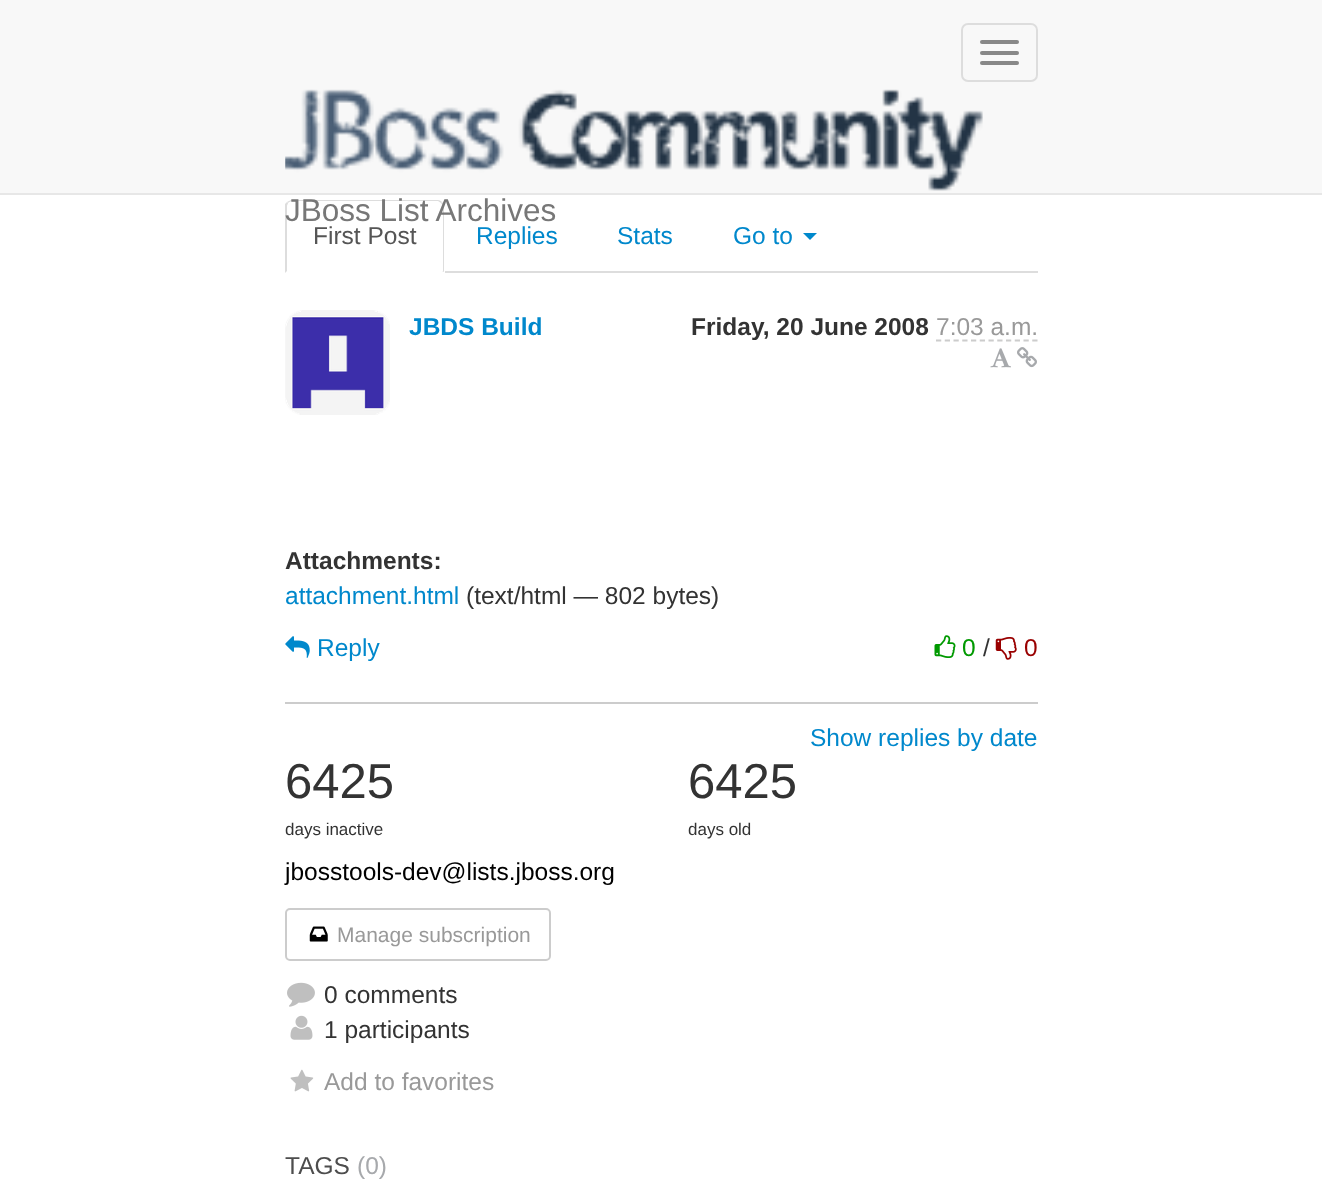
<svg xmlns="http://www.w3.org/2000/svg" width="1322" height="1187">
<rect width="100%" height="100%" fill="#fff"/>
<rect width="1322" height="193" fill="#f8f8f8"/>
<rect y="193" width="1322" height="2" fill="#e7e7e7"/>
<rect x="962" y="24" width="75" height="57" rx="6" fill="none" stroke="#ddd" stroke-width="2"/>
<rect x="980" y="40" width="39" height="4" rx="2" fill="#888"/>
<rect x="980" y="51" width="39" height="4" rx="2" fill="#888"/>
<rect x="980" y="61" width="39" height="4" rx="2" fill="#888"/>
<image x="285" y="89" width="698" height="102" href="media/1.png"/>
<path d="M292 200c-2 0-3 1-5 2l1 1c1-1 3-2 4-2h146l3 2l1-1c-1-1-2-2-4-2z" fill="#ddd"/>
<path d="M444 272v-66c0-2-1-3-2-4l-1 1l2 3v65h-1z" fill="#ddd"/>
<path d="M285 273l2-2v-65c0-1 1-2 1-3l-1-1l-2 2z" fill="#ddd"/>
<text x="285" y="221" style="font-family:Liberation Sans;font-size:31.5px;fill:#777">JBoss List Archives</text>
<rect x="445" y="271" width="593" height="2" fill="#ddd"/>
<text x="313" y="244" style="font-family:Liberation Sans;font-size:24.5px;fill:#555">First Post</text>
<text x="476" y="244" style="font-family:Liberation Sans;font-size:24.5px;fill:#08c">Replies</text>
<text x="617" y="244" style="font-family:Liberation Sans;font-size:24.5px;fill:#08c">Stats</text>
<text x="733" y="244" style="font-family:Liberation Sans;font-size:24.5px;fill:#08c">Go to</text>
<path d="M803 233h14l-7 7z" fill="#08c"/>
<image x="285" y="310" width="105" height="105" href="media/2.png"/>
<text x="409" y="335" style="font-family:Liberation Sans;font-size:24.5px;font-weight:bold;fill:#08c">JBDS Build</text>
<text x="691" y="335" style="font-family:Liberation Sans;font-size:24.5px;font-weight:bold;fill:#333">Friday, 20 June 2008</text>
<text x="936" y="335" style="font-family:Liberation Sans;font-size:24.5px;fill:#999">7:03 a.m.</text>
<path d="M936 340.5h102" fill="none" stroke="#ccc" stroke-width="1.8" stroke-dasharray="5.25 3.5"/>
<image x="990" y="348" width="21" height="20" href="media/3.png"/>
<image x="1017" y="347" width="20" height="21" href="media/4.png"/>
<text x="285" y="569" style="font-family:Liberation Sans;font-size:24.5px;font-weight:bold;fill:#333">Attachments:</text>
<text x="285" y="604" style="font-family:Liberation Sans;font-size:24.5px;fill:#08c">attachment.html</text>
<text x="466" y="604" style="font-family:Liberation Sans;font-size:24.5px;fill:#333">(text/html — 802 bytes)</text>
<rect x="285" y="702" width="753" height="2" fill="#ccc"/>
<image x="285" y="636" width="25" height="22" href="media/5.png"/>
<text x="317" y="656" style="font-family:Liberation Sans;font-size:24.5px;fill:#08c">Reply</text>
<image x="934" y="635" width="22" height="23" href="media/6.png"/>
<text x="962" y="656" style="font-family:Liberation Sans;font-size:24.5px;fill:#090">0</text>
<text x="983" y="656" style="font-family:Liberation Sans;font-size:24.5px;fill:#333">/</text>
<image x="995" y="637" width="22" height="23" href="media/7.png"/>
<text x="1024" y="656" style="font-family:Liberation Sans;font-size:24.5px;fill:#900">0</text>
<text x="810" y="746" style="font-family:Liberation Sans;font-size:24.5px;fill:#08c">Show replies by date</text>
<text x="285" y="798" style="font-family:Liberation Sans;font-size:49px;fill:#333">6425</text>
<text x="285" y="835" style="font-family:Liberation Sans;font-size:17px;fill:#333">days inactive</text>
<text x="688" y="798" style="font-family:Liberation Sans;font-size:49px;fill:#333">6425</text>
<text x="688" y="835" style="font-family:Liberation Sans;font-size:17px;fill:#333">days old</text>
<text x="285" y="880" style="font-family:Liberation Sans;font-size:24.5px;fill:#000">jbosstools-dev@lists.jboss.org</text>
<rect x="286" y="909" width="264" height="51" rx="4" fill="none" stroke="#ccc" stroke-width="2"/>
<image x="309" y="926" width="19" height="16" href="media/8.png"/>
<text x="337" y="942" style="font-family:Liberation Sans;font-size:21px;fill:#999">Manage subscription</text>
<image x="287" y="982" width="28" height="25" href="media/9.png"/>
<text x="324" y="1003" style="font-family:Liberation Sans;font-size:24.5px;fill:#333">0 comments</text>
<image x="290" y="1015" width="23" height="25" href="media/10.png"/>
<text x="324" y="1038" style="font-family:Liberation Sans;font-size:24.5px;fill:#333">1 participants</text>
<image x="290" y="1069" width="24" height="23" href="media/11.png"/>
<text x="324" y="1090" style="font-family:Liberation Sans;font-size:24.5px;fill:#999">Add to favorites</text>
<text x="285" y="1174" style="font-family:Liberation Sans;font-size:24.5px;fill:#4d4d4d">TAGS</text>
<text x="357" y="1174" style="font-family:Liberation Sans;font-size:24.5px;fill:#a7a9ac">(0)</text>
</svg>
